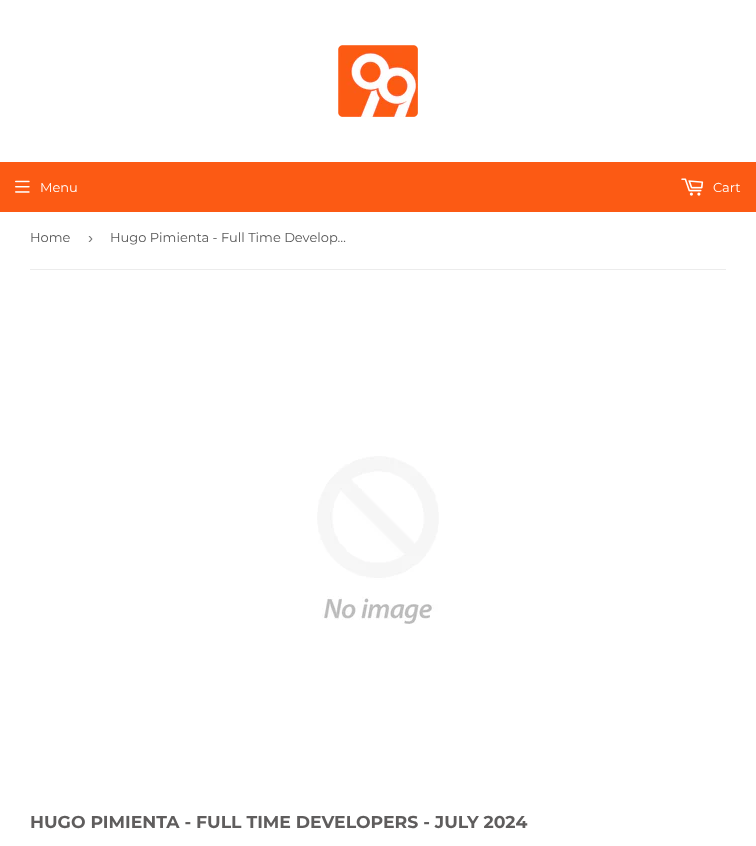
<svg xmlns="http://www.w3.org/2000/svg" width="756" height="846">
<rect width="100%" height="100%" fill="#fff"/>
<image x="338" y="45" width="80" height="72" href="media/1.png"/>
<rect y="162" width="756" height="50" fill="#fc5a14"/>
<image x="15" y="180" width="15" height="13" href="media/2.png"/>
<text x="40" y="192" style="font-family:Montserrat;font-size:13px;fill:#fff">Menu</text>
<image x="681" y="178" width="23" height="18" href="media/3.png"/>
<text x="713" y="192" style="font-family:Montserrat;font-size:13px;fill:#fff">Cart</text>
<rect x="30" y="269" width="696" height="1" fill="#ececec"/>
<text x="30" y="242" style="font-family:Montserrat;font-size:13px;fill:#585858">Home</text>
<text x="88" y="243" style="font-family:Liberation Sans;font-size:15px;fill:#767676">›</text>
<text x="110" y="242" style="font-family:Montserrat;font-size:13px;fill:#585858">Hugo Pimienta - Full Time Develop…</text>
<image x="317" y="456" width="122" height="168" href="media/4.png"/>
<text x="30" y="828" style="font-family:Montserrat;font-size:17.3px;font-weight:bold;fill:#5f5d5d">HUGO PIMIENTA - FULL TIME DEVELOPERS - JULY 2024</text>
</svg>
